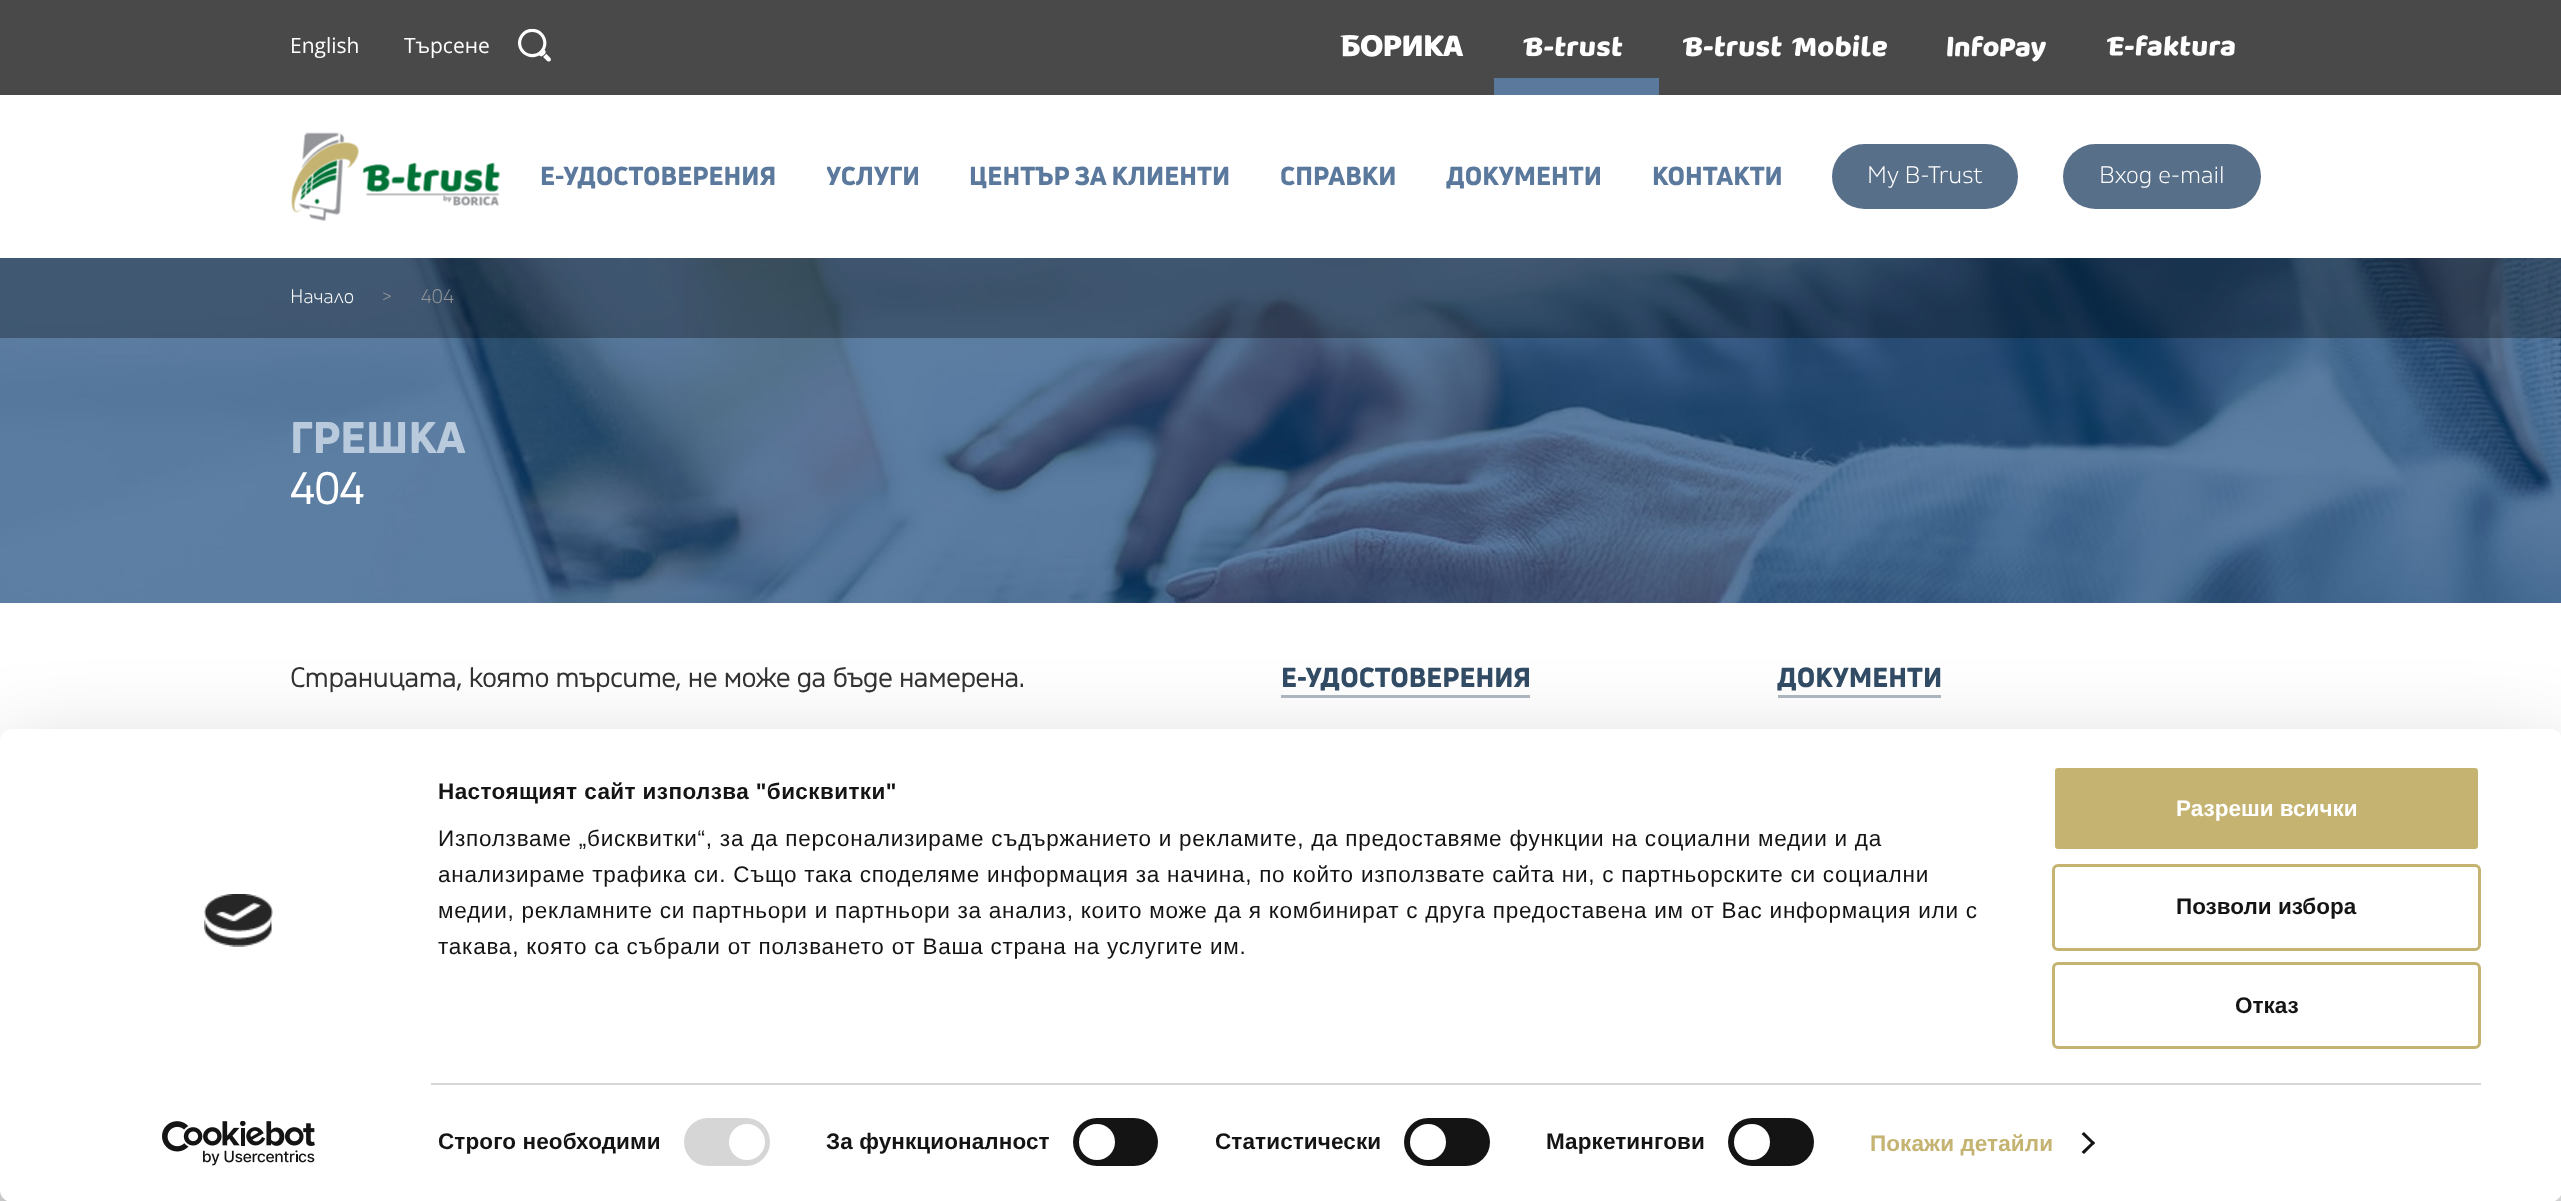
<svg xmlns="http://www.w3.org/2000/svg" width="2561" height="1201">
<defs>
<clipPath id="clip1"><rect x="827" y="159" width="91" height="35"/></clipPath>
</defs>
<rect width="100%" height="100%" fill="#fff"/>
<rect width="2561" height="95" fill="#494949"/>
<text x="290" y="53" style="font-family:Open Sans;font-size:21px;fill:#fff">English</text>
<text x="404" y="53" style="font-family:Open Sans;font-size:21px;fill:#fff">Търсене</text>
<image x="518" y="28" width="33" height="34" href="media/1.png"/>
<image x="1340" y="35" width="124" height="22" href="media/2.png"/>
<image x="1523" y="36" width="100" height="21" href="media/3.png"/>
<rect x="1494" y="78" width="165" height="17" fill="#5b799d"/>
<image x="1683" y="35" width="204" height="22" href="media/4.png"/>
<image x="1947" y="36" width="99" height="26" href="media/5.png"/>
<image x="2107" y="35" width="128" height="21" href="media/6.png"/>
<image x="291" y="132" width="209" height="89" href="media/7.png"/>
<text x="540" y="185" style="font-family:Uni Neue;font-size:25.5px;font-weight:900;fill:#5b799d">Е-УДОСТОВЕРЕНИЯ</text>
<g clip-path="url(#clip1)">
<text x="826" y="185" style="font-family:Uni Neue;font-size:25.5px;font-weight:900;fill:#5b799d">УСЛУГИ</text>
</g>
<text x="969" y="185" style="font-family:Uni Neue;font-size:25.5px;font-weight:900;fill:#5b799d">ЦЕНТЪР ЗА КЛИЕНТИ</text>
<text x="1280" y="185" style="font-family:Uni Neue;font-size:25.5px;font-weight:900;fill:#5b799d">СПРАВКИ</text>
<text x="1446" y="185" style="font-family:Uni Neue;font-size:25.5px;font-weight:900;fill:#5b799d">ДОКУМЕНТИ</text>
<text x="1652" y="185" style="font-family:Uni Neue;font-size:25.5px;font-weight:900;fill:#5b799d">КОНТАКТИ</text>
<rect x="1832" y="144" width="186" height="65" rx="32.5" fill="#586f89"/>
<text x="1867" y="183" style="font-family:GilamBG;font-size:24px;font-weight:300;fill:#fff">My B-Trust</text>
<rect x="2063" y="144" width="198" height="65" rx="32.5" fill="#586f89"/>
<text x="2099" y="183" style="font-family:GilamBG;font-size:24px;font-weight:300;fill:#fff">Вход e-mail</text>
<image x="0" y="258" width="2561" height="345" href="media/8.png"/>
<rect y="258" width="2561" height="80" fill="#0000004d"/>
<text x="290" y="303" style="font-family:GilamBG;font-size:19.5px;font-weight:300;fill:#fff">Начало</text>
<text x="382" y="303" style="font-family:GilamBG;font-size:19.5px;font-weight:300;fill:#939598">&gt;</text>
<text x="421" y="303" style="font-family:GilamBG;font-size:19.5px;font-weight:300;fill:#939598">404</text>
<text x="290" y="453" style="font-family:Uni Neue;font-size:43.5px;font-weight:900;fill:#b9cadd">ГРЕШКА</text>
<text x="290" y="504" style="font-family:GilamBG;font-size:43.5px;font-weight:bold;fill:#fff">404</text>
<text x="290" y="687" style="font-family:GilamBG;font-size:27px;font-weight:bold;fill:#333">Страницата, която търсите, не може да бъде намерена.</text>
<text x="1281" y="687" style="font-family:Uni Neue;font-size:27px;font-weight:900;fill:#324c66">Е-УДОСТОВЕРЕНИЯ</text>
<rect x="1281" y="695" width="249" height="3" fill="#b0b8c1"/>
<text x="1777" y="687" style="font-family:Uni Neue;font-size:27px;font-weight:900;fill:#324c66">ДОКУМЕНТИ</text>
<rect x="1778" y="695" width="163" height="3" fill="#b0b8c1"/>
<rect y="1190" width="8" height="11" fill="#e4e4e4"/>
<rect x="2554" y="1194" width="7" height="7" fill="#f0f0f0"/>
<rect y="774" width="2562" height="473" rx="12" fill="#0000004d" filter="blur(52.5px)"/>
<rect y="729" width="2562" height="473" rx="12" fill="#fff"/>
<image x="204" y="894" width="69" height="53" href="media/9.png"/>
<image x="162" y="1121" width="153" height="45" href="media/10.png"/>
<text x="438" y="799" style="font-family:Liberation Sans;font-size:22.5px;font-weight:bold;letter-spacing:0.4px;fill:#141414">Настоящият сайт използва "бисквитки"</text>
<text x="438" y="846" style="font-family:Liberation Sans;font-size:22.5px;letter-spacing:0.75px;fill:#141414">Използваме „бисквитки“, за да персонализираме съдържанието и рекламите, да предоставяме функции на социални медии и да</text>
<text x="438" y="882" style="font-family:Liberation Sans;font-size:22.5px;letter-spacing:0.75px;fill:#141414">анализираме трафика си. Също така споделяме информация за начина, по който използвате сайта ни, с партньорските си социални</text>
<text x="438" y="918" style="font-family:Liberation Sans;font-size:22.5px;letter-spacing:0.75px;fill:#141414">медии, рекламните си партньори и партньори за анализ, които може да я комбинират с друга предоставена им от Вас информация или с</text>
<text x="438" y="954" style="font-family:Liberation Sans;font-size:22.5px;letter-spacing:0.75px;fill:#141414">такава, която са събрали от ползването от Ваша страна на услугите им.</text>
<rect x="431" y="1083" width="2050" height="2" fill="#d6d6d6"/>
<text x="438" y="1149" style="font-family:Liberation Sans;font-size:22.5px;font-weight:bold;letter-spacing:0.1px;fill:#141414">Строго необходими</text>
<rect x="684" y="1118" width="86" height="48" rx="24" fill="#d6d6d6"/>
<circle cx="747" cy="1142" r="18" fill="#fff"/>
<text x="826" y="1149" style="font-family:Liberation Sans;font-size:22.5px;font-weight:bold;letter-spacing:0.1px;fill:#141414">За функционалност</text>
<rect x="1073" y="1118" width="85" height="48" rx="24" fill="#141414"/>
<circle cx="1097" cy="1142" r="18" fill="#fff"/>
<text x="1215" y="1149" style="font-family:Liberation Sans;font-size:22.5px;font-weight:bold;letter-spacing:0.1px;fill:#141414">Статистически</text>
<rect x="1404" y="1118" width="86" height="48" rx="24" fill="#141414"/>
<circle cx="1428" cy="1142" r="18" fill="#fff"/>
<text x="1546" y="1149" style="font-family:Liberation Sans;font-size:22.5px;font-weight:bold;letter-spacing:0.1px;fill:#141414">Маркетингови</text>
<rect x="1728" y="1118" width="86" height="48" rx="24" fill="#141414"/>
<circle cx="1752" cy="1142" r="18" fill="#fff"/>
<text x="1870" y="1151" style="font-family:Liberation Sans;font-size:22.5px;font-weight:bold;letter-spacing:0.1px;fill:#c5b372">Покажи детайли</text>
<path d="M2084 1132l11 11l-2 2l-11.5-11z" fill="#141414"/>
<path d="M2093 1141l2 2l-11 11l-2.5-2z" fill="#141414"/>
<rect x="2053.5" y="766.5" width="426" height="84" rx="4.5" fill="#c5b372" stroke="#fff" stroke-width="3"/>
<text x="2176" y="816" style="font-family:Liberation Sans;font-size:22.5px;font-weight:bold;fill:#fff">Разреши всички</text>
<rect x="2053.5" y="865.5" width="426" height="84" rx="4.5" fill="none" stroke="#c5b372" stroke-width="3"/>
<text x="2176" y="914" style="font-family:Liberation Sans;font-size:22.5px;font-weight:bold;fill:#141414">Позволи избора</text>
<rect x="2053.5" y="963.5" width="426" height="84" rx="4.5" fill="none" stroke="#c5b372" stroke-width="3"/>
<text x="2235" y="1013" style="font-family:Liberation Sans;font-size:22.5px;font-weight:bold;fill:#141414">Отказ</text>
</svg>
